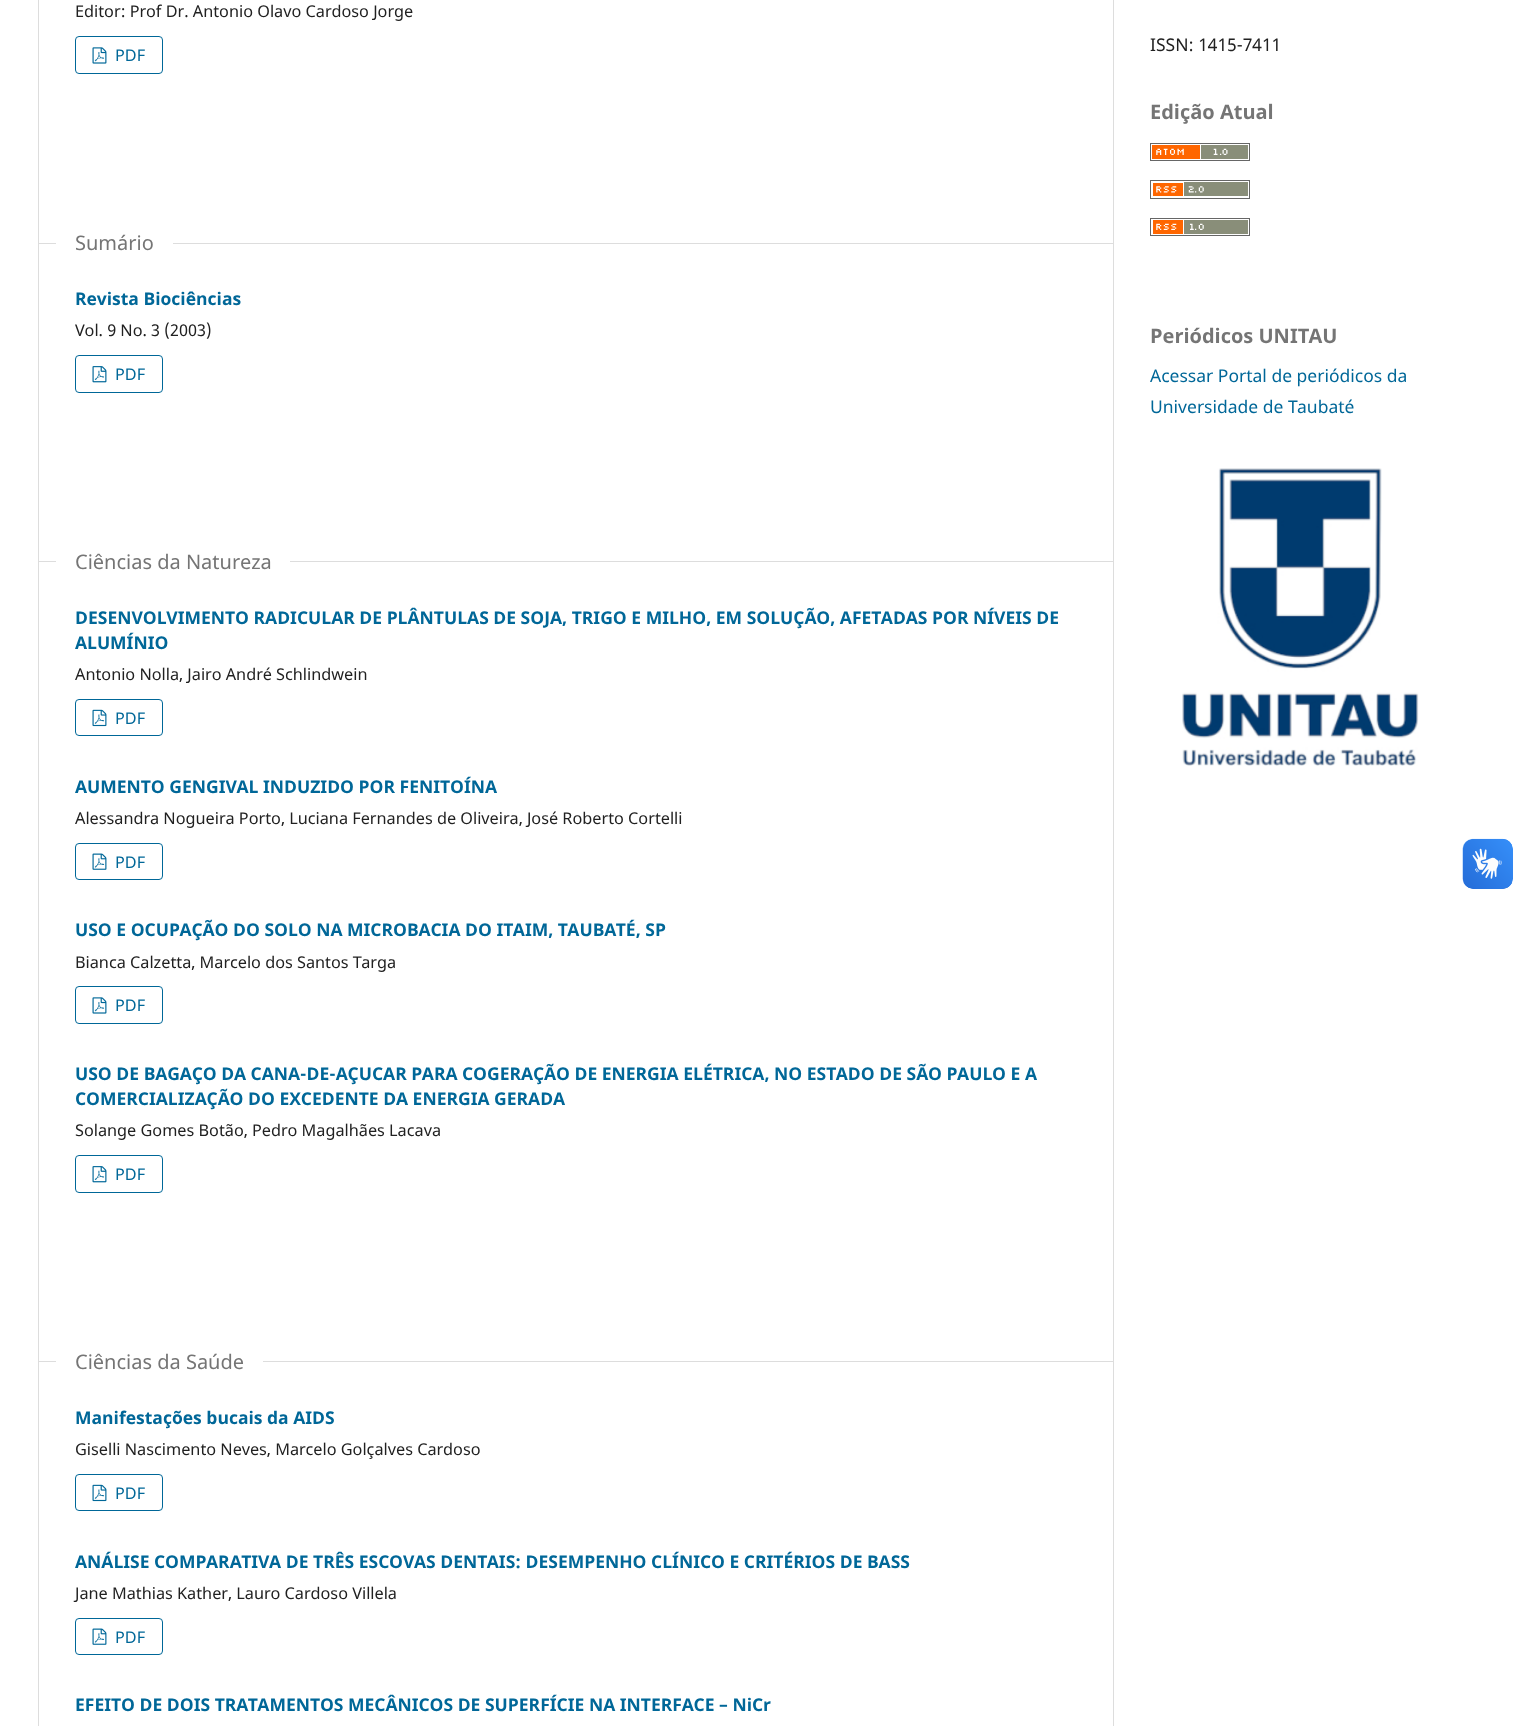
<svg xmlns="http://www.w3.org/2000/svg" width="1524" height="1726">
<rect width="100%" height="100%" fill="#fff"/>
<rect x="38" width="1" height="1726" fill="#ddd"/>
<text x="75" y="17" style="font-family:Noto Sans;font-size:16.25px;fill:#212121">Editor: Prof Dr. Antonio Olavo Cardoso Jorge</text>
<rect x="75.5" y="36.5" width="87" height="37" rx="3.5" fill="none" stroke="#006798"/>
<image x="92" y="47" width="15" height="17" href="media/1.png"/>
<text x="115" y="61" style="font-family:Noto Sans;font-size:16.25px;fill:#006798">PDF</text>
<rect x="38" y="243" width="1075" height="1" fill="#ddd"/>
<rect x="56" y="243" width="117" height="1" fill="#fff"/>
<text x="75" y="250" style="font-family:Noto Sans;font-size:20px;fill:#757575">Sumário</text>
<text x="75" y="305" style="font-family:Noto Sans;font-size:17.5px;font-weight:bold;fill:#006798">Revista Biociências</text>
<text x="75" y="336" style="font-family:Noto Sans;font-size:16.25px;fill:#212121">Vol. 9 No. 3 (2003)</text>
<rect x="75.5" y="355.5" width="87" height="37" rx="3.5" fill="none" stroke="#006798"/>
<image x="92" y="366" width="15" height="17" href="media/2.png"/>
<text x="115" y="380" style="font-family:Noto Sans;font-size:16.25px;fill:#006798">PDF</text>
<rect x="38" y="561" width="1075" height="1" fill="#ddd"/>
<rect x="56" y="561" width="234" height="1" fill="#fff"/>
<text x="75" y="569" style="font-family:Noto Sans;font-size:20px;fill:#757575">Ciências da Natureza</text>
<text x="75" y="624" style="font-family:Noto Sans;font-size:17.5px;font-weight:bold;fill:#006798">DESENVOLVIMENTO RADICULAR DE PLÂNTULAS DE SOJA, TRIGO E MILHO, EM SOLUÇÃO, AFETADAS POR NÍVEIS DE</text>
<text x="75" y="649" style="font-family:Noto Sans;font-size:17.5px;font-weight:bold;fill:#006798">ALUMÍNIO</text>
<text x="75" y="680" style="font-family:Noto Sans;font-size:16.25px;fill:#212121">Antonio Nolla, Jairo André Schlindwein</text>
<rect x="75.5" y="699.5" width="87" height="36" rx="3.5" fill="none" stroke="#006798"/>
<image x="92" y="709" width="15" height="18" href="media/3.png"/>
<text x="115" y="724" style="font-family:Noto Sans;font-size:16.25px;fill:#006798">PDF</text>
<text x="75" y="793" style="font-family:Noto Sans;font-size:17.5px;font-weight:bold;fill:#006798">AUMENTO GENGIVAL INDUZIDO POR FENITOÍNA</text>
<text x="75" y="824" style="font-family:Noto Sans;font-size:16.25px;fill:#212121">Alessandra Nogueira Porto, Luciana Fernandes de Oliveira, José Roberto Cortelli</text>
<rect x="75.5" y="843.5" width="87" height="36" rx="3.5" fill="none" stroke="#006798"/>
<image x="92" y="853" width="15" height="17" href="media/4.png"/>
<text x="115" y="868" style="font-family:Noto Sans;font-size:16.25px;fill:#006798">PDF</text>
<text x="75" y="936" style="font-family:Noto Sans;font-size:17.5px;font-weight:bold;fill:#006798">USO E OCUPAÇÃO DO SOLO NA MICROBACIA DO ITAIM, TAUBATÉ, SP</text>
<text x="75" y="968" style="font-family:Noto Sans;font-size:16.25px;fill:#212121">Bianca Calzetta, Marcelo dos Santos Targa</text>
<rect x="75.5" y="986.5" width="87" height="37" rx="3.5" fill="none" stroke="#006798"/>
<image x="92" y="997" width="15" height="17" href="media/1.png"/>
<text x="115" y="1011" style="font-family:Noto Sans;font-size:16.25px;fill:#006798">PDF</text>
<text x="75" y="1080" style="font-family:Noto Sans;font-size:17.5px;font-weight:bold;fill:#006798">USO DE BAGAÇO DA CANA-DE-AÇUCAR PARA COGERAÇÃO DE ENERGIA ELÉTRICA, NO ESTADO DE SÃO PAULO E A</text>
<text x="75" y="1105" style="font-family:Noto Sans;font-size:17.5px;font-weight:bold;fill:#006798">COMERCIALIZAÇÃO DO EXCEDENTE DA ENERGIA GERADA</text>
<text x="75" y="1136" style="font-family:Noto Sans;font-size:16.25px;fill:#212121">Solange Gomes Botão, Pedro Magalhães Lacava</text>
<rect x="75.5" y="1155.5" width="87" height="37" rx="3.5" fill="none" stroke="#006798"/>
<image x="92" y="1166" width="15" height="17" href="media/2.png"/>
<text x="115" y="1180" style="font-family:Noto Sans;font-size:16.25px;fill:#006798">PDF</text>
<rect x="38" y="1361" width="1075" height="1" fill="#ddd"/>
<rect x="56" y="1361" width="207" height="1" fill="#fff"/>
<text x="75" y="1369" style="font-family:Noto Sans;font-size:20px;fill:#757575">Ciências da Saúde</text>
<text x="75" y="1424" style="font-family:Noto Sans;font-size:17.5px;font-weight:bold;fill:#006798">Manifestações bucais da AIDS</text>
<text x="75" y="1455" style="font-family:Noto Sans;font-size:16.25px;fill:#212121">Giselli Nascimento Neves, Marcelo Golçalves Cardoso</text>
<rect x="75.5" y="1474.5" width="87" height="36" rx="3.5" fill="none" stroke="#006798"/>
<image x="92" y="1484" width="15" height="18" href="media/3.png"/>
<text x="115" y="1499" style="font-family:Noto Sans;font-size:16.25px;fill:#006798">PDF</text>
<text x="75" y="1568" style="font-family:Noto Sans;font-size:17.5px;font-weight:bold;fill:#006798">ANÁLISE COMPARATIVA DE TRÊS ESCOVAS DENTAIS: DESEMPENHO CLÍNICO E CRITÉRIOS DE BASS</text>
<text x="75" y="1599" style="font-family:Noto Sans;font-size:16.25px;fill:#212121">Jane Mathias Kather, Lauro Cardoso Villela</text>
<rect x="75.5" y="1618.5" width="87" height="36" rx="3.5" fill="none" stroke="#006798"/>
<image x="92" y="1628" width="15" height="17" href="media/4.png"/>
<text x="115" y="1643" style="font-family:Noto Sans;font-size:16.25px;fill:#006798">PDF</text>
<text x="75" y="1711" style="font-family:Noto Sans;font-size:17.5px;font-weight:bold;fill:#006798">EFEITO DE DOIS TRATAMENTOS MECÂNICOS DE SUPERFÍCIE NA INTERFACE – NiCr</text>
<rect x="1113" width="1" height="1726" fill="#ddd"/>
<text x="1150" y="51" style="font-family:Noto Sans;font-size:17.5px;fill:#212121">ISSN: 1415-7411</text>
<text x="1150" y="119" style="font-family:Noto Sans;font-size:20px;font-weight:bold;fill:#757575">Edição Atual</text>
<image x="1150" y="143" width="100" height="18" href="media/5.png"/>
<image x="1150" y="180" width="100" height="19" href="media/6.png"/>
<image x="1150" y="218" width="100" height="18" href="media/7.png"/>
<text x="1150" y="343" style="font-family:Noto Sans;font-size:20px;font-weight:bold;fill:#757575">Periódicos UNITAU</text>
<text x="1150" y="382" style="font-family:Noto Sans;font-size:17.5px;fill:#006798">Acessar Portal de periódicos da</text>
<text x="1150" y="413" style="font-family:Noto Sans;font-size:17.5px;fill:#006798">Universidade de Taubaté</text>
<image x="1182" y="468" width="237" height="298" href="media/8.png"/>
<image x="1462" y="838" width="51" height="51" href="media/9.png"/>
<image x="1463" y="839" width="50" height="50" href="media/10.png"/>
</svg>
